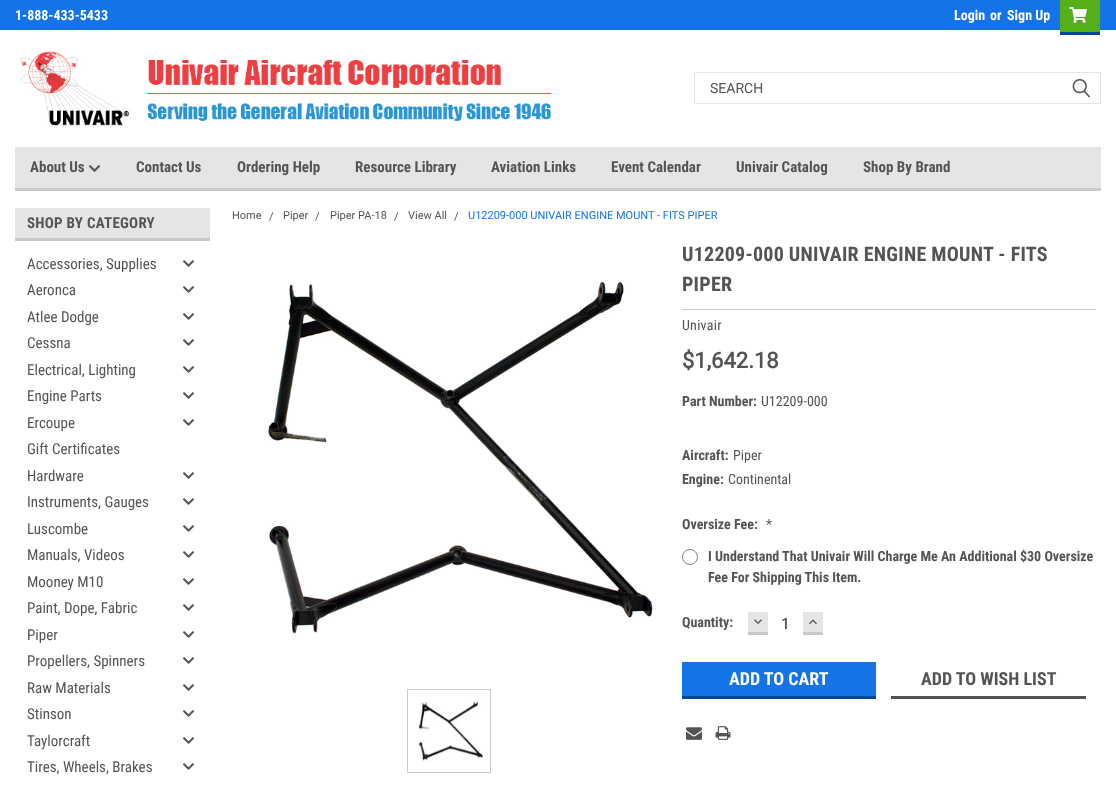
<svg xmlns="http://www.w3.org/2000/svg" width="1116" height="786">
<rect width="100%" height="100%" fill="#fff"/>
<rect width="1116" height="30" fill="#1473e6"/>
<text x="15" y="20" style="font-family:Roboto Condensed;font-size:14px;font-weight:bold;fill:#fff">1-888-433-5433</text>
<text x="954" y="20" style="font-family:Roboto Condensed;font-size:14px;font-weight:bold;fill:#fff">Login</text>
<text x="990" y="20" style="font-family:Roboto Condensed;font-size:14px;font-weight:bold;fill:#fff">or</text>
<text x="1007" y="20" style="font-family:Roboto Condensed;font-size:14px;font-weight:bold;fill:#fff">Sign Up</text>
<rect x="1060" width="40" height="32" fill="#54b016"/>
<rect x="1060" y="32" width="40" height="3" fill="#074999"/>
<image x="1069" y="6" width="18" height="17" href="media/1.png"/>
<image x="20" y="51" width="532" height="75" href="media/2.png"/>
<rect x="694.5" y="72.5" width="406" height="31" fill="none" stroke="#e5e5e5"/>
<text x="710" y="93" style="font-family:Roboto;font-size:14px;fill:#545454">SEARCH</text>
<image x="1072" y="79" width="18" height="19" href="media/3.png"/>
<rect x="15" y="147" width="1086" height="41" fill="#e5e5e5"/>
<rect x="15" y="188" width="1086" height="3" fill="#c9c9c9"/>
<text x="30" y="172" style="font-family:Roboto Condensed;font-size:15px;font-weight:bold;fill:#545454">About Us</text>
<image x="89" y="165" width="11" height="7" href="media/4.png"/>
<text x="136" y="172" style="font-family:Roboto Condensed;font-size:15px;font-weight:bold;fill:#545454">Contact Us</text>
<text x="237" y="172" style="font-family:Roboto Condensed;font-size:15px;font-weight:bold;fill:#545454">Ordering Help</text>
<text x="355" y="172" style="font-family:Roboto Condensed;font-size:15px;font-weight:bold;fill:#545454">Resource Library</text>
<text x="491" y="172" style="font-family:Roboto Condensed;font-size:15px;font-weight:bold;fill:#545454">Aviation Links</text>
<text x="611" y="172" style="font-family:Roboto Condensed;font-size:15px;font-weight:bold;fill:#545454">Event Calendar</text>
<text x="736" y="172" style="font-family:Roboto Condensed;font-size:15px;font-weight:bold;fill:#545454">Univair Catalog</text>
<text x="863" y="172" style="font-family:Roboto Condensed;font-size:15px;font-weight:bold;fill:#545454">Shop By Brand</text>
<rect x="15" y="208" width="195" height="30" fill="#e5e5e5"/>
<rect x="15" y="238" width="195" height="3" fill="#c9c9c9"/>
<text x="27" y="228" style="font-family:Roboto Condensed;font-size:15px;font-weight:bold;letter-spacing:0.25px;fill:#545454">SHOP BY CATEGORY</text>
<text x="27" y="269" style="font-family:Roboto Condensed;font-size:15px;fill:#545454">Accessories, Supplies</text>
<image x="183" y="260" width="11" height="7" href="media/5.png"/>
<text x="27" y="295" style="font-family:Roboto Condensed;font-size:15px;fill:#545454">Aeronca</text>
<image x="183" y="286" width="11" height="7" href="media/5.png"/>
<text x="27" y="322" style="font-family:Roboto Condensed;font-size:15px;fill:#545454">Atlee Dodge</text>
<image x="183" y="313" width="11" height="7" href="media/5.png"/>
<text x="27" y="348" style="font-family:Roboto Condensed;font-size:15px;fill:#545454">Cessna</text>
<image x="183" y="339" width="11" height="7" href="media/5.png"/>
<text x="27" y="375" style="font-family:Roboto Condensed;font-size:15px;fill:#545454">Electrical, Lighting</text>
<image x="183" y="366" width="11" height="7" href="media/5.png"/>
<text x="27" y="401" style="font-family:Roboto Condensed;font-size:15px;fill:#545454">Engine Parts</text>
<image x="183" y="392" width="11" height="7" href="media/5.png"/>
<text x="27" y="428" style="font-family:Roboto Condensed;font-size:15px;fill:#545454">Ercoupe</text>
<image x="183" y="419" width="11" height="7" href="media/5.png"/>
<text x="27" y="454" style="font-family:Roboto Condensed;font-size:15px;fill:#545454">Gift Certificates</text>
<text x="27" y="481" style="font-family:Roboto Condensed;font-size:15px;fill:#545454">Hardware</text>
<image x="183" y="472" width="11" height="7" href="media/5.png"/>
<text x="27" y="507" style="font-family:Roboto Condensed;font-size:15px;fill:#545454">Instruments, Gauges</text>
<image x="183" y="498" width="11" height="7" href="media/5.png"/>
<text x="27" y="534" style="font-family:Roboto Condensed;font-size:15px;fill:#545454">Luscombe</text>
<image x="183" y="525" width="11" height="7" href="media/5.png"/>
<text x="27" y="560" style="font-family:Roboto Condensed;font-size:15px;fill:#545454">Manuals, Videos</text>
<image x="183" y="551" width="11" height="7" href="media/5.png"/>
<text x="27" y="587" style="font-family:Roboto Condensed;font-size:15px;fill:#545454">Mooney M10</text>
<image x="183" y="578" width="11" height="7" href="media/5.png"/>
<text x="27" y="613" style="font-family:Roboto Condensed;font-size:15px;fill:#545454">Paint, Dope, Fabric</text>
<image x="183" y="604" width="11" height="7" href="media/5.png"/>
<text x="27" y="640" style="font-family:Roboto Condensed;font-size:15px;fill:#545454">Piper</text>
<image x="183" y="631" width="11" height="7" href="media/5.png"/>
<text x="27" y="666" style="font-family:Roboto Condensed;font-size:15px;fill:#545454">Propellers, Spinners</text>
<image x="183" y="657" width="11" height="7" href="media/5.png"/>
<text x="27" y="693" style="font-family:Roboto Condensed;font-size:15px;fill:#545454">Raw Materials</text>
<image x="183" y="684" width="11" height="7" href="media/5.png"/>
<text x="27" y="719" style="font-family:Roboto Condensed;font-size:15px;fill:#545454">Stinson</text>
<image x="183" y="710" width="11" height="7" href="media/5.png"/>
<text x="27" y="746" style="font-family:Roboto Condensed;font-size:15px;fill:#545454">Taylorcraft</text>
<image x="183" y="737" width="11" height="7" href="media/5.png"/>
<text x="27" y="772" style="font-family:Roboto Condensed;font-size:15px;fill:#545454">Tires, Wheels, Brakes</text>
<image x="183" y="763" width="11" height="7" href="media/5.png"/>
<text x="232" y="219" style="font-family:Roboto;font-size:11px;fill:#545454">Home</text>
<text x="269" y="220" style="font-family:Roboto;font-size:11px;fill:#545454">/</text>
<text x="283" y="219" style="font-family:Roboto;font-size:11px;fill:#545454">Piper</text>
<text x="315" y="220" style="font-family:Roboto;font-size:11px;fill:#545454">/</text>
<text x="330" y="219" style="font-family:Roboto;font-size:11px;fill:#545454">Piper PA-18</text>
<text x="394" y="220" style="font-family:Roboto;font-size:11px;fill:#545454">/</text>
<text x="408" y="219" style="font-family:Roboto;font-size:11px;fill:#545454">View All</text>
<text x="454" y="220" style="font-family:Roboto;font-size:11px;fill:#545454">/</text>
<text x="468" y="219" style="font-family:Roboto;font-size:11px;fill:#1473e6">U12209-000 UNIVAIR ENGINE MOUNT - FITS PIPER</text>
<image x="268" y="281" width="385" height="353" href="media/6.png"/>
<rect x="407.5" y="689.5" width="83" height="83" fill="none" stroke="#c9c9c9"/>
<image x="418" y="701" width="65" height="61" href="media/7.png"/>
<rect x="682" y="309" width="414" height="1" fill="#c9c9c9"/>
<text x="682" y="261" style="font-family:Roboto Condensed;font-size:20px;font-weight:bold;letter-spacing:0.25px;fill:#545454">U12209-000 UNIVAIR ENGINE MOUNT - FITS</text>
<text x="682" y="291" style="font-family:Roboto Condensed;font-size:20px;font-weight:bold;letter-spacing:0.25px;fill:#545454">PIPER</text>
<text x="682" y="330" style="font-family:Roboto Condensed;font-size:14px;letter-spacing:0.25px;fill:#545454">Univair</text>
<text x="682" y="368" style="font-family:Roboto;font-size:22px;font-weight:bold;fill:#545454">$1,642.18</text>
<text x="682" y="406" style="font-family:Roboto Condensed;font-size:14px;font-weight:bold;fill:#545454">Part Number:</text>
<text x="761" y="406" style="font-family:Roboto Condensed;font-size:14px;fill:#545454">U12209-000</text>
<text x="682" y="460" style="font-family:Roboto Condensed;font-size:14px;font-weight:bold;fill:#545454">Aircraft:</text>
<text x="733" y="460" style="font-family:Roboto Condensed;font-size:14px;fill:#545454">Piper</text>
<text x="682" y="484" style="font-family:Roboto Condensed;font-size:14px;font-weight:bold;fill:#545454">Engine:</text>
<text x="728" y="484" style="font-family:Roboto Condensed;font-size:14px;fill:#545454">Continental</text>
<text x="682" y="529" style="font-family:Roboto Condensed;font-size:14px;font-weight:bold;fill:#545454">Oversize Fee:</text>
<text x="766" y="529" style="font-family:Roboto Condensed;font-size:14px;fill:#545454">*</text>
<circle cx="690" cy="557" r="7.5" fill="none" stroke="#828282"/>
<text x="708" y="561" style="font-family:Roboto Condensed;font-size:14px;font-weight:bold;fill:#545454">I Understand That Univair Will Charge Me An Additional $30 Oversize</text>
<text x="708" y="582" style="font-family:Roboto Condensed;font-size:14px;font-weight:bold;fill:#545454">Fee For Shipping This Item.</text>
<text x="682" y="627" style="font-family:Roboto Condensed;font-size:14px;font-weight:bold;fill:#545454">Quantity:</text>
<rect x="748" y="612" width="20" height="20" fill="#e5e5e5"/>
<rect x="748" y="632" width="20" height="3" fill="#c9c9c9"/>
<image x="754" y="619" width="8" height="5" href="media/8.png"/>
<text x="781" y="629" style="font-family:Roboto;font-size:15px;font-weight:bold;fill:#545454">1</text>
<rect x="803" y="612" width="20" height="20" fill="#e5e5e5"/>
<rect x="803" y="632" width="20" height="3" fill="#c9c9c9"/>
<image x="809" y="619" width="8" height="6" href="media/9.png"/>
<rect x="682" y="662" width="194" height="34" fill="#1473e6"/>
<rect x="682" y="696" width="194" height="3" fill="#074999"/>
<text x="729" y="685" style="font-family:Roboto Condensed;font-size:18px;font-weight:bold;fill:#fff">ADD TO CART</text>
<rect x="891" y="696" width="195" height="3" fill="#545454"/>
<text x="921" y="685" style="font-family:Roboto Condensed;font-size:18px;font-weight:bold;fill:#545454">ADD TO WISH LIST</text>
<image x="686" y="727" width="16" height="13" href="media/10.png"/>
<image x="715" y="726" width="16" height="14" href="media/11.png"/>
</svg>
